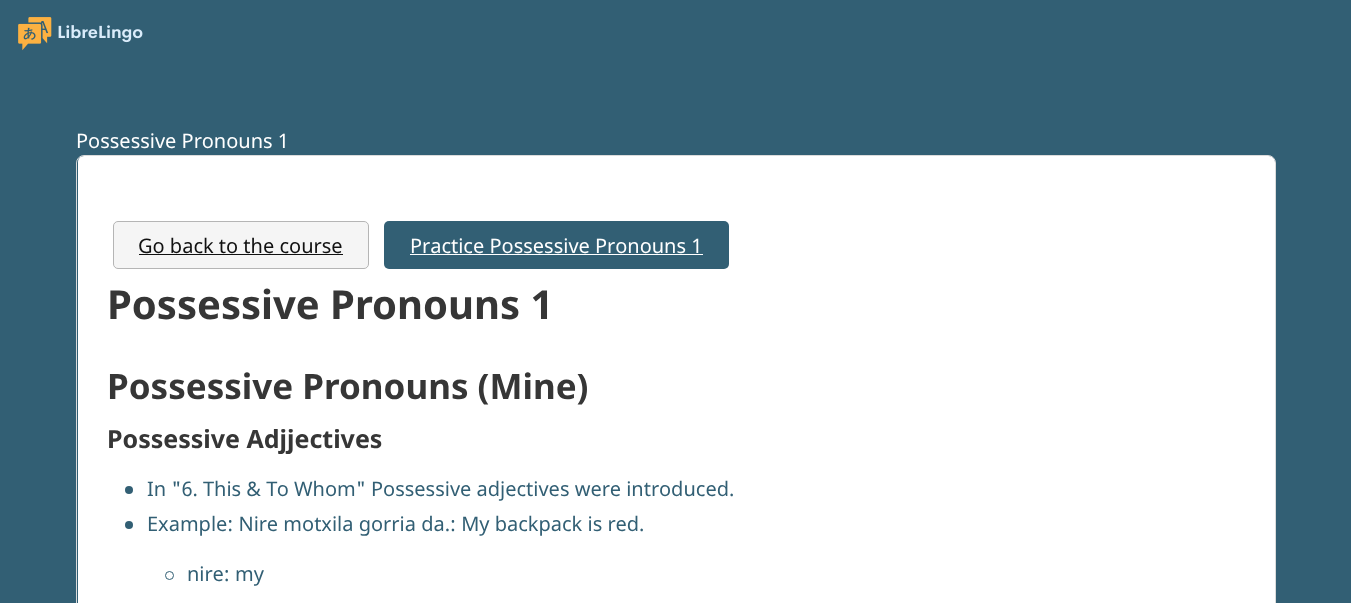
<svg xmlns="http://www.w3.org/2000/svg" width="1351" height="603">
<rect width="100%" height="100%" fill="#325f74"/>
<image x="18" y="17" width="125" height="34" href="media/1.png"/>
<text x="76" y="148" style="font-family:Noto Sans;font-size:20px;fill:#fff">Possessive Pronouns 1</text>
<path d="M84 156h1185c3 0 6 3 6 6v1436c0 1-3 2-6 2h-1185c-4 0-6-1-6-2v-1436c0-3 2-6 6-6z" fill="#fff"/>
<rect x="76.5" y="155.5" width="1199" height="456" rx="7.5" fill="none" stroke="#dbdbdb"/>
<rect x="113.5" y="221.5" width="255" height="47" rx="4.5" fill="#f5f5f5" stroke="#b5b5b5"/>
<text x="138" y="253" style="font-family:Noto Sans;font-size:20px;fill:#111">Go back to the course</text>
<rect x="139" y="254" width="204" height="1" fill="#111"/>
<rect x="384" y="221" width="345" height="48" rx="5" fill="#325f74"/>
<text x="410" y="253" style="font-family:Noto Sans;font-size:20px;fill:#fff">Practice Possessive Pronouns 1</text>
<rect x="410" y="254" width="293" height="1" fill="#fff"/>
<text x="107" y="319" style="font-family:Noto Sans;font-size:40px;font-weight:bold;fill:#363636">Possessive Pronouns 1</text>
<text x="107" y="399" style="font-family:Noto Sans;font-size:35px;font-weight:bold;fill:#363636">Possessive Pronouns (Mine)</text>
<text x="107" y="448" style="font-family:Noto Sans;font-size:25px;font-weight:bold;fill:#363636">Possessive Adjjectives</text>
<circle cx="129" cy="490" r="4" fill="#325f74"/>
<text x="147" y="496" style="font-family:Noto Sans;font-size:20px;fill:#325f74">In "6. This &amp; To Whom" Possessive adjectives were introduced.</text>
<circle cx="129" cy="525" r="4" fill="#325f74"/>
<text x="147" y="531" style="font-family:Noto Sans;font-size:20px;fill:#325f74">Example: Nire motxila gorria da.: My backpack is red.</text>
<circle cx="169.5" cy="575.5" r="4" fill="none" stroke="#325f74"/>
<text x="187" y="581" style="font-family:Noto Sans;font-size:20px;fill:#325f74">nire: my</text>
</svg>
